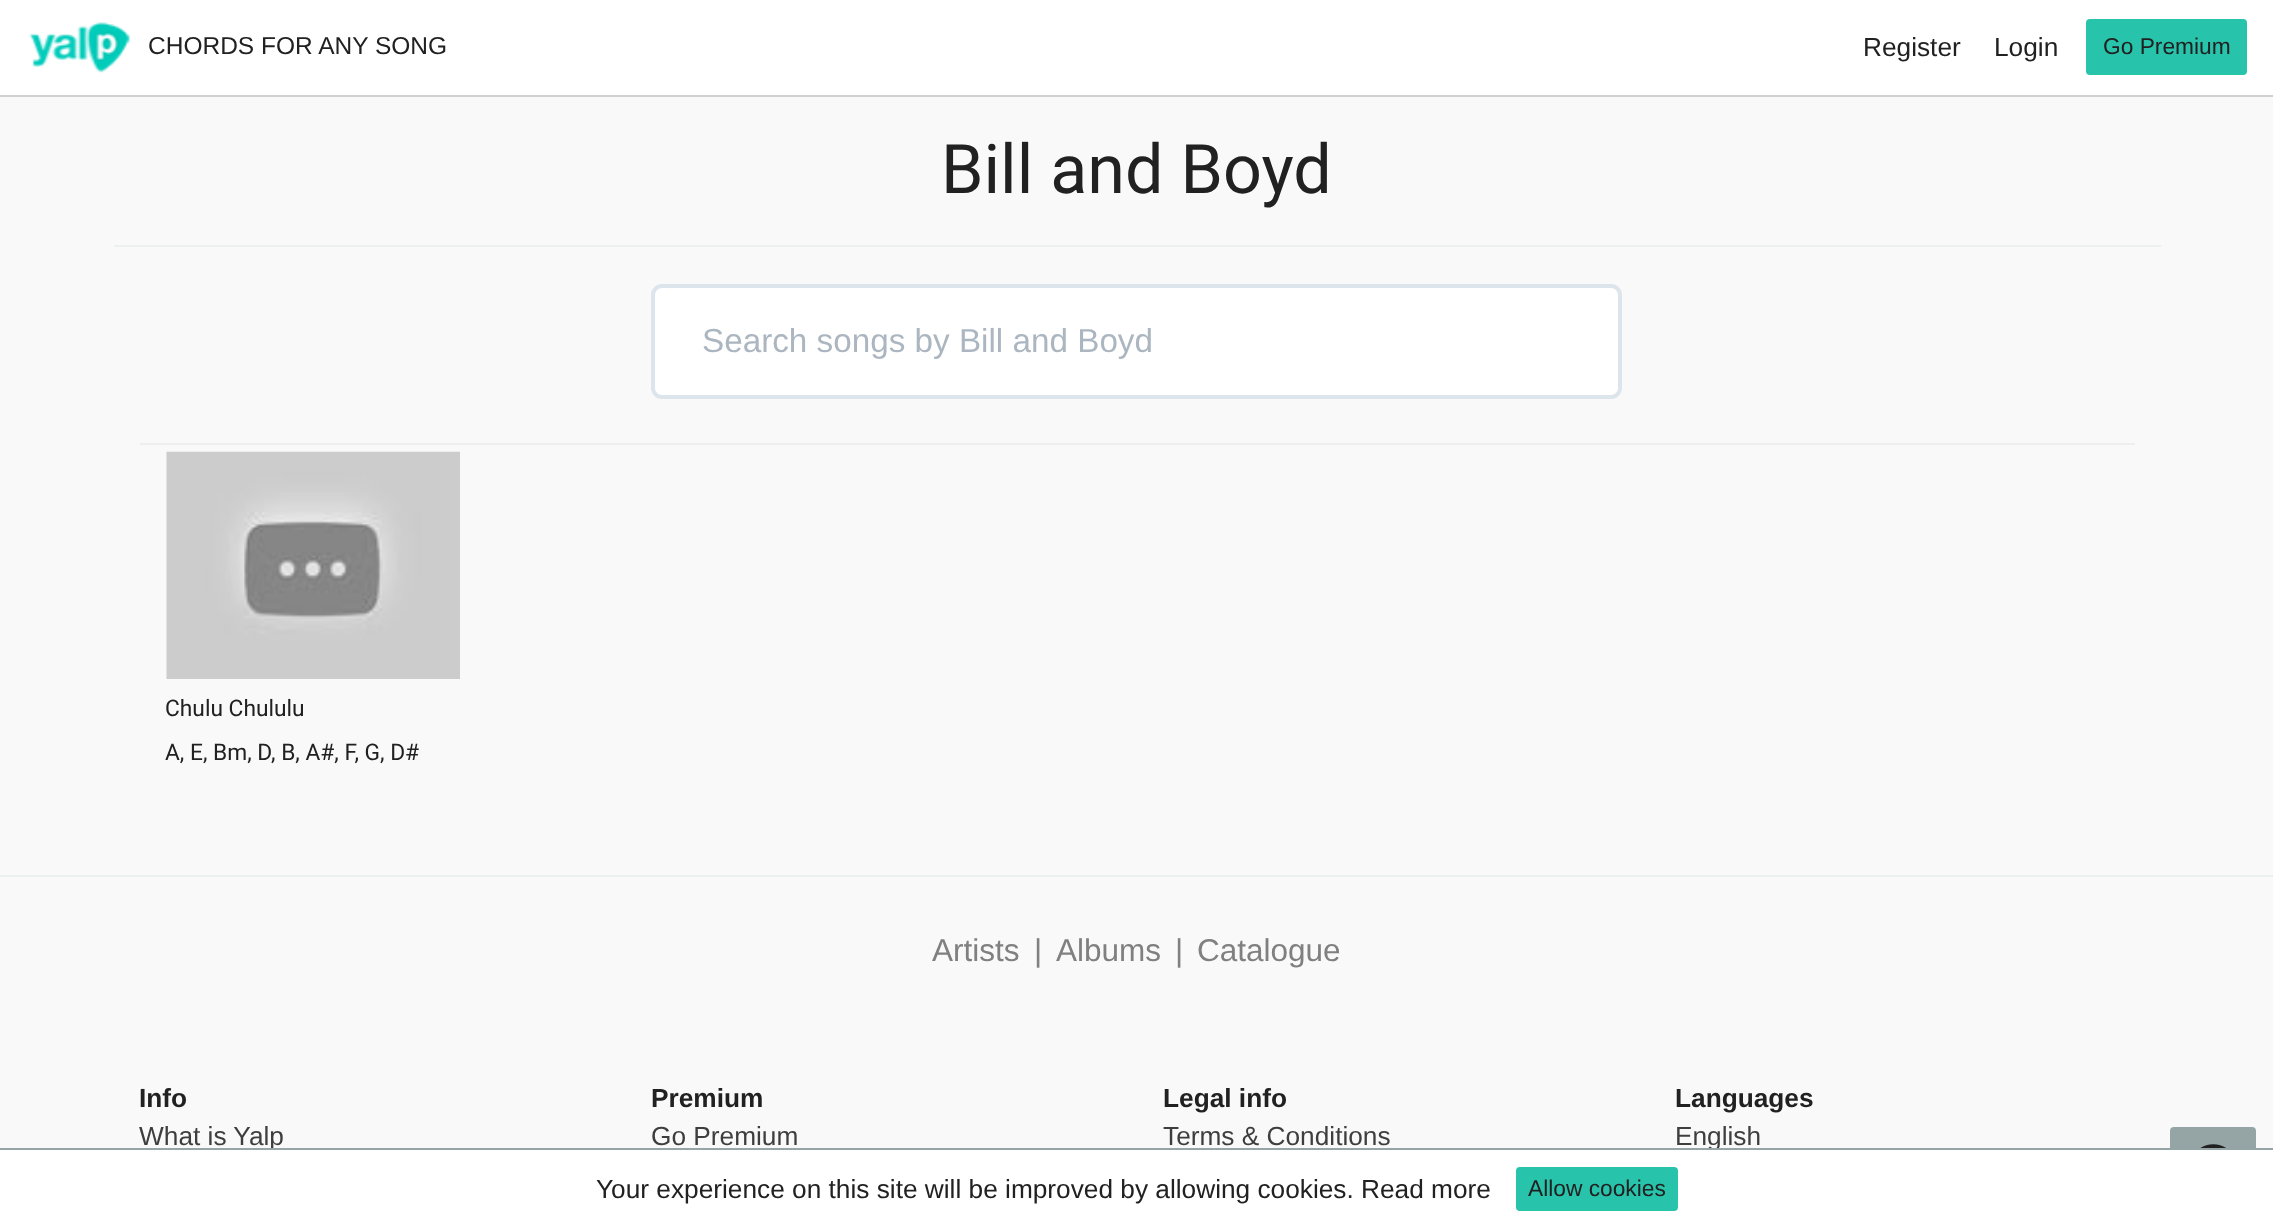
<svg xmlns="http://www.w3.org/2000/svg" width="2273" height="1227">
<rect width="100%" height="100%" fill="#f9f9f9"/>
<rect width="2273" height="95" fill="#fff"/>
<rect y="95" width="2273" height="2" fill="#d0d0d0"/>
<image x="29" y="22" width="101" height="51" href="media/1.png"/>
<text x="148" y="54" style="font-family:Liberation Sans;font-size:24.5px;fill:#212121">CHORDS FOR ANY SONG</text>
<text x="1863" y="56" style="font-family:Liberation Sans;font-size:26.25px;fill:#212121">Register</text>
<text x="1994" y="56" style="font-family:Liberation Sans;font-size:26.25px;fill:#212121">Login</text>
<rect x="2088" y="21" width="157" height="52" rx="2" fill="#28c3ab" stroke="#28c3ab" stroke-width="4"/>
<text x="2103" y="54" style="font-family:Liberation Sans;font-size:22.75px;fill:#212121">Go Premium</text>
<text x="139" y="1145" style="font-family:Liberation Sans;font-size:26.25px;fill:#3e3e3e">What is Yalp</text>
<text x="1675" y="1145" style="font-family:Liberation Sans;font-size:26.25px;fill:#3e3e3e">English</text>
<rect x="2172" y="1129" width="82" height="80" rx="2" fill="#95a5a6" stroke="#95a5a6" stroke-width="4"/>
<rect y="1148" width="2273" height="2" fill="#95a5a6"/>
<rect y="1150" width="2273" height="77" fill="#fff"/>
<text x="596" y="1198" style="font-family:Liberation Sans;font-size:26.25px;fill:#212121">Your experience on this site will be improved by allowing cookies. Read more</text>
<rect x="1518" y="1169" width="158" height="40" rx="2" fill="#28c3ab" stroke="#28c3ab" stroke-width="4"/>
<text x="1528" y="1196" style="font-family:Liberation Sans;font-size:22.75px;fill:#212121">Allow cookies</text>
<text x="941" y="193" style="font-family:Roboto;font-size:68.25px;fill:#212121">Bill and Boyd</text>
<rect x="114" y="245" width="2047" height="2" fill="#ecf0f1"/>
<rect x="653" y="286" width="967" height="111" rx="9" fill="#fff" stroke="#dce4ec" stroke-width="4"/>
<text x="702" y="352" style="font-family:Liberation Sans;font-size:33.25px;fill:#acb6c0">Search songs by Bill and Boyd</text>
<rect x="140" y="443" width="1995" height="2" fill="#eee"/>
<rect x="166" y="452" width="1" height="227" fill="#fff"/>
<image x="166" y="451" width="294" height="228" href="media/2.png"/>
<text x="165" y="716" style="font-family:Roboto;font-size:22.75px;fill:#212121">Chulu Chululu</text>
<text x="165" y="760" style="font-family:Roboto;font-size:22.75px;fill:#212121">A, E, Bm, D, B, A#, F, G, D#</text>
<rect y="875" width="2273" height="2" fill="#ecf0f1"/>
<text x="932" y="961" style="font-family:Liberation Sans;font-size:31.5px;fill:#808080">Artists</text>
<text x="1034" y="961" style="font-family:Liberation Sans;font-size:31.5px;fill:#808080">|</text>
<text x="1056" y="961" style="font-family:Liberation Sans;font-size:31.5px;fill:#808080">Albums</text>
<text x="1175" y="961" style="font-family:Liberation Sans;font-size:31.5px;fill:#808080">|</text>
<text x="1197" y="961" style="font-family:Liberation Sans;font-size:31.5px;fill:#808080">Catalogue</text>
<text x="139" y="1107" style="font-family:Liberation Sans;font-size:26.25px;font-weight:bold;fill:#212121">Info</text>
<text x="651" y="1107" style="font-family:Liberation Sans;font-size:26.25px;font-weight:bold;fill:#212121">Premium</text>
<text x="651" y="1145" style="font-family:Liberation Sans;font-size:26.25px;fill:#3e3e3e">Go Premium</text>
<text x="1163" y="1107" style="font-family:Liberation Sans;font-size:26.25px;font-weight:bold;fill:#212121">Legal info</text>
<text x="1163" y="1145" style="font-family:Liberation Sans;font-size:26.25px;fill:#3e3e3e">Terms &amp; Conditions</text>
<text x="1675" y="1107" style="font-family:Liberation Sans;font-size:26.25px;font-weight:bold;fill:#212121">Languages</text>
<image x="2200" y="1144" width="26" height="4" href="media/3.png"/>
</svg>
